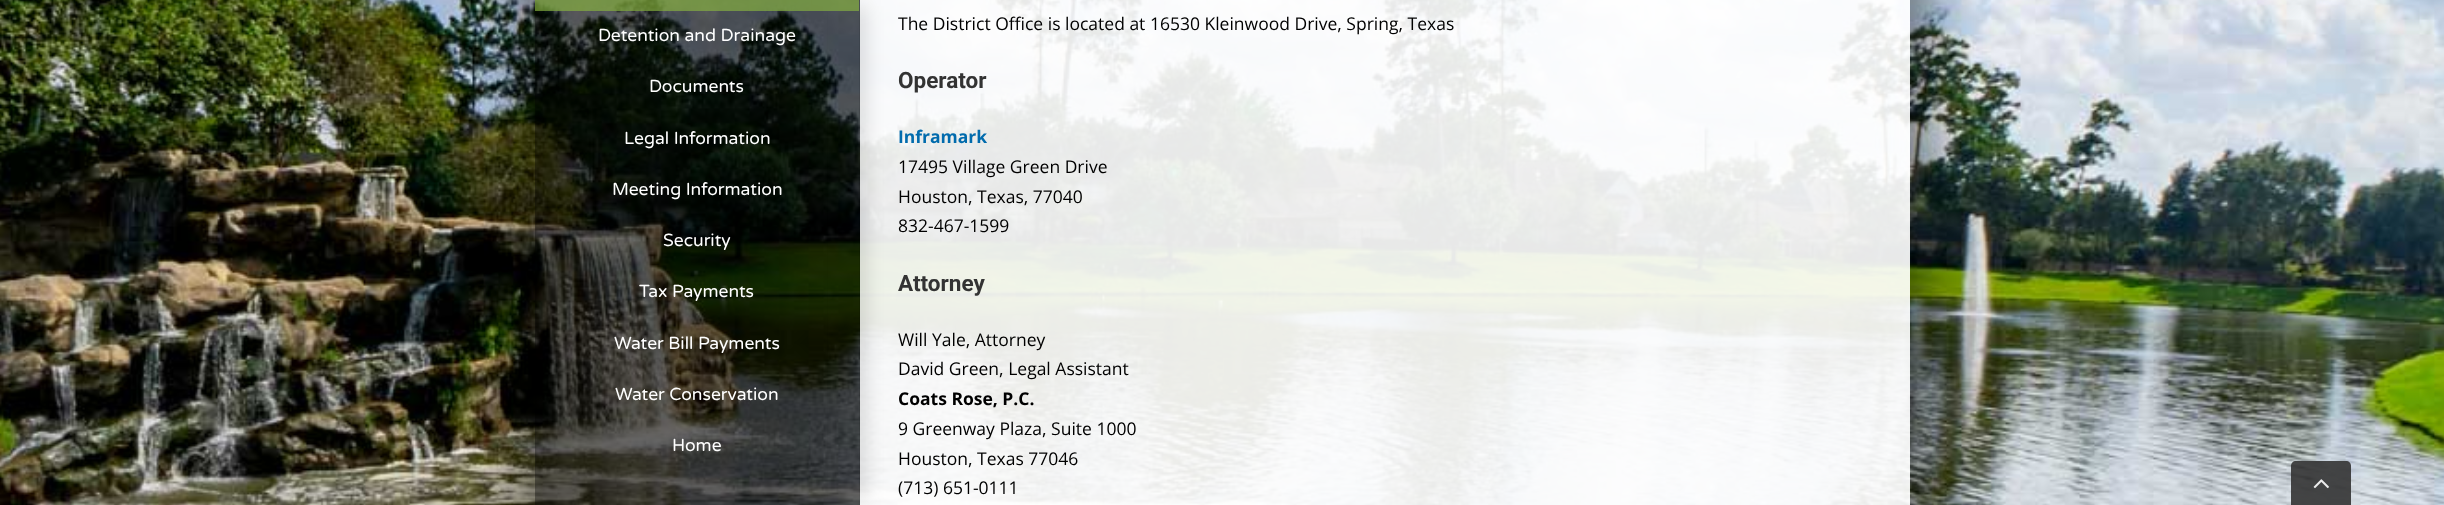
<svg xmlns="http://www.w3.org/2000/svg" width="2444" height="505">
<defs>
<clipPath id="clip1"><path d="M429 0h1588v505h-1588zm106-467h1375v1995h-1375z" clip-rule="evenodd"/></clipPath>
<clipPath id="clip2"><path d="M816 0h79v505h-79zm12 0h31v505h-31z" clip-rule="evenodd"/></clipPath>
</defs>
<rect width="100%" height="100%" fill="#fff"/>
<image x="0" y="0" width="2444" height="505" href="media/1.png"/>
<g clip-path="url(#clip1)">
<rect x="523" y="-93" width="1400" height="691" fill="#0000008c" filter="blur(31px)"/>
</g>
<rect x="535" width="325" height="505" fill="#00000096"/>
<rect x="860" width="1050" height="505" fill="#ffffffe8"/>
<g clip-path="url(#clip2)">
<rect x="846" y="6" width="19" height="493" fill="#00000024" filter="blur(9.5px)"/>
</g>
<rect x="535" width="324" height="11" fill="#89b440a8"/>
<text x="598" y="41" style="font-family:Varela Round;font-size:17.5px;fill:#fff">Detention and Drainage</text>
<text x="649" y="92" style="font-family:Varela Round;font-size:17.5px;fill:#fff">Documents</text>
<text x="624" y="144" style="font-family:Varela Round;font-size:17.5px;fill:#fff">Legal Information</text>
<text x="612" y="195" style="font-family:Varela Round;font-size:17.5px;fill:#fff">Meeting Information</text>
<text x="663" y="246" style="font-family:Varela Round;font-size:17.5px;fill:#fff">Security</text>
<text x="639" y="297" style="font-family:Varela Round;font-size:17.5px;fill:#fff">Tax Payments</text>
<text x="614" y="349" style="font-family:Varela Round;font-size:17.5px;fill:#fff">Water Bill Payments</text>
<text x="615" y="400" style="font-family:Varela Round;font-size:17.5px;fill:#fff">Water Conservation</text>
<text x="672" y="451" style="font-family:Varela Round;font-size:17.5px;fill:#fff">Home</text>
<text x="898" y="30" style="font-family:Open Sans;font-size:17.5px;fill:#000">The District Office is located at 16530 Kleinwood Drive, Spring, Texas</text>
<text x="898" y="88" style="font-family:Roboto;font-size:22.5px;font-weight:bold;fill:#333">Operator</text>
<text x="898" y="143" style="font-family:Open Sans;font-size:17.5px;font-weight:bold;fill:#016bad">Inframark</text>
<text x="898" y="173" style="font-family:Open Sans;font-size:17.5px;fill:#000">17495 Village Green Drive</text>
<text x="898" y="203" style="font-family:Open Sans;font-size:17.5px;fill:#000">Houston, Texas, 77040</text>
<text x="898" y="232" style="font-family:Open Sans;font-size:17.5px;fill:#000">832-467-1599</text>
<text x="898" y="291" style="font-family:Roboto;font-size:22.5px;font-weight:bold;fill:#333">Attorney</text>
<text x="898" y="346" style="font-family:Open Sans;font-size:17.5px;fill:#000">Will Yale, Attorney</text>
<text x="898" y="375" style="font-family:Open Sans;font-size:17.5px;fill:#000">David Green, Legal Assistant</text>
<text x="898" y="405" style="font-family:Open Sans;font-size:17.5px;font-weight:bold;fill:#000">Coats Rose, P.C.</text>
<text x="898" y="435" style="font-family:Open Sans;font-size:17.5px;fill:#000">9 Greenway Plaza, Suite 1000</text>
<text x="898" y="465" style="font-family:Open Sans;font-size:17.5px;fill:#000">Houston, Texas 77046</text>
<text x="898" y="494" style="font-family:Open Sans;font-size:17.5px;fill:#000">(713) 651-0111</text>
<path d="M2296 461h50c3 0 5 2 5 5v39h-60v-39c0-3 2-5 5-5z" fill="#333333e6"/>
<image x="2313" y="479" width="16" height="10" href="media/2.png"/>
</svg>
